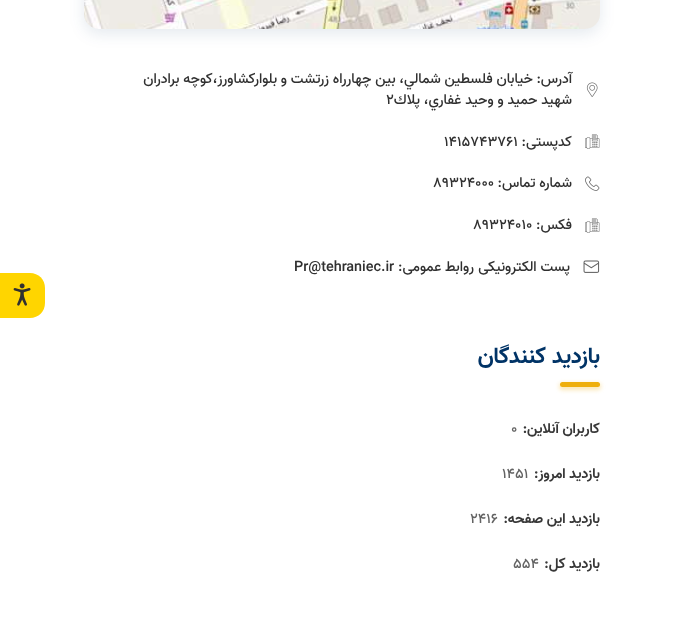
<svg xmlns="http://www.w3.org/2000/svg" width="683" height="630">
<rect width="100%" height="100%" fill="#fff"/>
<rect x="84" y="-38" width="516" height="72" rx="15" fill="#0033661a" filter="blur(7.5px)"/>
<image x="84" y="0" width="516" height="29" href="media/1.png"/>
<image x="586" y="82" width="12" height="15" href="media/2.png"/>
<text x="572" y="83" style="font-family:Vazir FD;font-size:14.4px;font-weight:500;direction:rtl;fill:#303030">آدرس:</text>
<text x="533" y="83" style="font-family:Vazir FD;font-size:14.4px;font-weight:500;direction:rtl;fill:#303030">خيابان فلسطين شمالي، بين چهارراه زرتشت و بلواركشاورز،كوچه برادران</text>
<text x="572" y="104" style="font-family:Vazir FD;font-size:14.4px;font-weight:500;direction:rtl;fill:#303030">شهيد حميد و وحيد غفاري، پلاك</text>
<text x="386" y="104" style="font-family:Vazir FD;font-size:14.4px;font-weight:500;fill:#303030">2</text>
<image x="585" y="134" width="15" height="15" href="media/3.png"/>
<text x="572" y="146" style="font-family:Vazir FD;font-size:14.4px;font-weight:500;direction:rtl;fill:#303030">کدپستی:</text>
<text x="444" y="146" style="font-family:Vazir FD;font-size:14.4px;font-weight:500;fill:#303030">1415743761</text>
<image x="585" y="176" width="15" height="15" href="media/4.png"/>
<text x="572" y="187" style="font-family:Vazir FD;font-size:14.4px;font-weight:500;direction:rtl;fill:#303030">شماره تماس:</text>
<text x="433" y="187" style="font-family:Vazir FD;font-size:14.4px;font-weight:500;fill:#303030">89324000</text>
<image x="585" y="218" width="15" height="15" href="media/3.png"/>
<text x="572" y="229" style="font-family:Vazir FD;font-size:14.4px;font-weight:500;direction:rtl;fill:#303030">فکس:</text>
<text x="473" y="229" style="font-family:Vazir FD;font-size:14.4px;font-weight:500;fill:#303030">89324010</text>
<image x="583" y="260" width="17" height="13" href="media/5.png"/>
<text x="570" y="271" style="font-family:Vazir FD;font-size:14.4px;font-weight:500;direction:rtl;fill:#303030">پست الکترونیکی</text>
<text x="474" y="271" style="font-family:Vazir FD;font-size:14.4px;font-weight:500;direction:rtl;fill:#303030">روابط عمومی:</text>
<text x="294" y="271" style="font-family:Vazir FD;font-size:14.4px;font-weight:500;fill:#303030">Pr@tehraniec.ir</text>
<text x="600" y="363" style="font-family:Vazir FD;font-size:22.5px;font-weight:bold;direction:rtl;fill:#036">بازديد كنندگان</text>
<rect x="559" y="383" width="42" height="7" rx="3.5" fill="#eeaf0c4d" filter="blur(2px)"/>
<rect x="560" y="382" width="40" height="5" rx="2.5" fill="#eeaf0c"/>
<text x="600" y="433" style="font-family:Vazir FD;font-size:14.4px;font-weight:bold;direction:rtl;fill:#383838">کاربران آنلاین:</text>
<text x="511" y="433" style="font-family:Vazir FD;font-size:14.4px;font-weight:500;fill:#636363">0</text>
<text x="600" y="478" style="font-family:Vazir FD;font-size:14.4px;font-weight:bold;direction:rtl;fill:#383838">بازدید امروز:</text>
<text x="502" y="478" style="font-family:Vazir FD;font-size:14.4px;font-weight:500;fill:#636363">1451</text>
<text x="600" y="523" style="font-family:Vazir FD;font-size:14.4px;font-weight:bold;direction:rtl;fill:#383838">بازدید این صفحه:</text>
<text x="470" y="523" style="font-family:Vazir FD;font-size:14.4px;font-weight:500;fill:#636363">2416</text>
<text x="600" y="568" style="font-family:Vazir FD;font-size:14.4px;font-weight:bold;direction:rtl;fill:#383838">بازدید‌ کل:</text>
<text x="513" y="568" style="font-family:Vazir FD;font-size:14.4px;font-weight:500;fill:#636363">554</text>
<path d="M0 273h30c8.5 0 15 6.5 15 15v15c0 8.5-6.5 15-15 15h-30z" fill="#ffd500"/>
<image x="13" y="283" width="18" height="23" href="media/6.png"/>
</svg>
